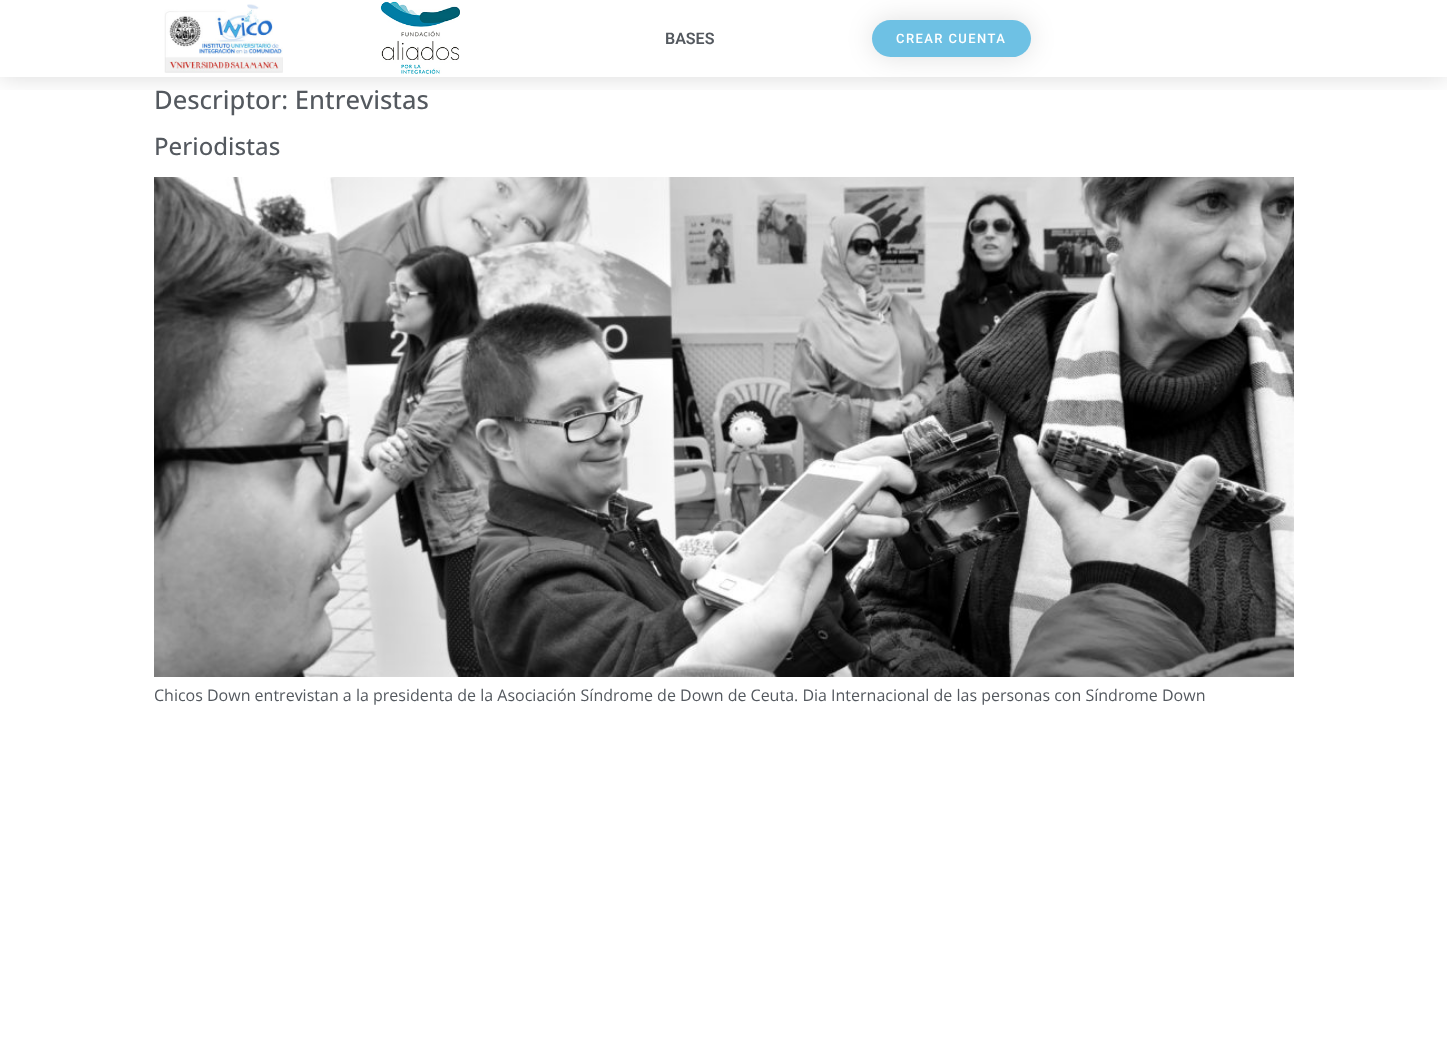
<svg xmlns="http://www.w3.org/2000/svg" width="1447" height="1038">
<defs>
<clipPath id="clip1"><rect x="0" y="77" width="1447" height="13"/></clipPath>
</defs>
<rect width="100%" height="100%" fill="#fff"/>
<g clip-path="url(#clip1)">
<rect width="1447" height="77" fill="#00000026" filter="blur(12px)"/>
</g>
<image x="164" y="4" width="119" height="69" href="media/1.png"/>
<image x="380" y="1" width="80" height="73" href="media/2.png"/>
<text x="665" y="44" style="font-family:Roboto;font-size:16px;font-weight:600;fill:#54595f">BASES</text>
<rect x="872" y="20" width="159" height="37" rx="18.5" fill="#0000001f" filter="blur(13.5px)"/>
<rect x="872" y="20" width="159" height="37" rx="18.5" fill="#6ec1e4"/>
<text x="896" y="43" style="font-family:Roboto;font-size:13px;font-weight:500;letter-spacing:1.4px;fill:#fff">CREAR CUENTA</text>
<text x="154" y="109" style="font-family:Open Sans;font-size:25.6px;font-weight:500;fill:#54595f">Descriptor: Entrevistas</text>
<text x="154" y="155" style="font-family:Open Sans;font-size:24px;font-weight:500;fill:#54595f">Periodistas</text>
<image x="154" y="177" width="1140" height="500" href="media/3.png"/>
<text x="154" y="701" style="font-family:Open Sans;font-size:16px;fill:#54595f">Chicos Down entrevistan a la presidenta de la Asociación Síndrome de Down de Ceuta. Dia Internacional de las personas con Síndrome Down</text>
</svg>
